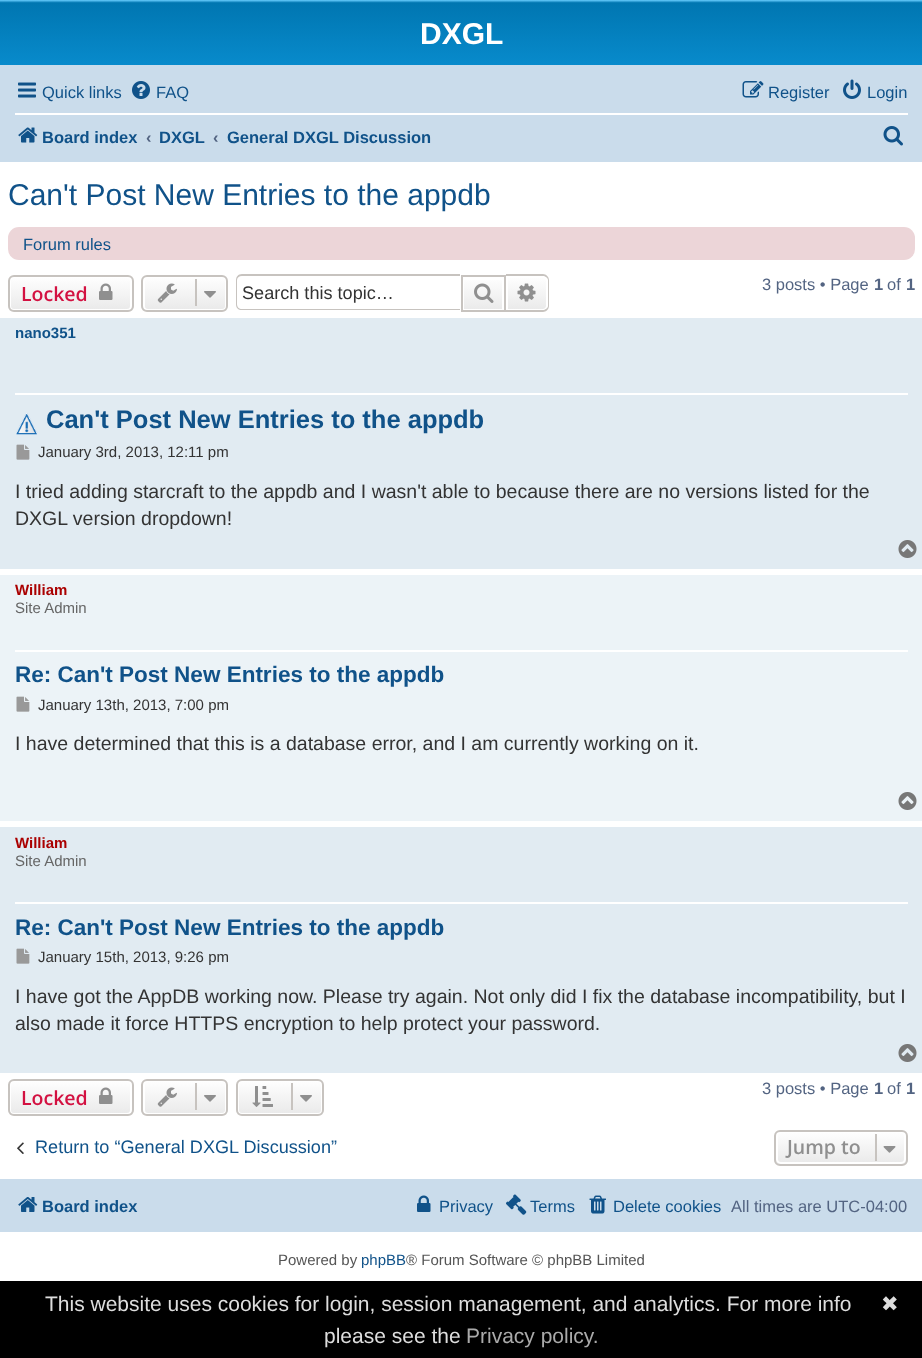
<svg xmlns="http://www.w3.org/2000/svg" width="922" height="1358">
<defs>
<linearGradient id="g1" gradientUnits="userSpaceOnUse" x1="461" y1="0" x2="461" y2="138"><stop offset="0" stop-color="#6aceff"/><stop offset="0.02" stop-color="#0076b1"/><stop offset="1" stop-color="#12a3eb"/></linearGradient>
<clipPath id="clip1"><rect x="8" y="275" width="126" height="37" rx="6"/></clipPath>
<linearGradient id="g2" gradientUnits="userSpaceOnUse" x1="71" y1="276" x2="71" y2="311"><stop offset="0" stop-color="#fff"/><stop offset="1" stop-color="#e9e9e9"/></linearGradient>
<clipPath id="clip2"><rect x="141" y="275" width="87" height="37" rx="6"/></clipPath>
<linearGradient id="g3" gradientUnits="userSpaceOnUse" x1="185" y1="276" x2="185" y2="311"><stop offset="0" stop-color="#fff"/><stop offset="1" stop-color="#e9e9e9"/></linearGradient>
<linearGradient id="g4" gradientUnits="userSpaceOnUse" x1="483" y1="276" x2="483" y2="311"><stop offset="0" stop-color="#fff"/><stop offset="1" stop-color="#e9e9e9"/></linearGradient>
<linearGradient id="g5" gradientUnits="userSpaceOnUse" x1="527" y1="276" x2="527" y2="311"><stop offset="0" stop-color="#fff"/><stop offset="1" stop-color="#e9e9e9"/></linearGradient>
<clipPath id="clip3"><rect x="8" y="1079" width="126" height="37" rx="6"/></clipPath>
<linearGradient id="g6" gradientUnits="userSpaceOnUse" x1="71" y1="1080" x2="71" y2="1115"><stop offset="0" stop-color="#fff"/><stop offset="1" stop-color="#e9e9e9"/></linearGradient>
<clipPath id="clip4"><rect x="141" y="1079" width="87" height="37" rx="6"/></clipPath>
<linearGradient id="g7" gradientUnits="userSpaceOnUse" x1="185" y1="1080" x2="185" y2="1115"><stop offset="0" stop-color="#fff"/><stop offset="1" stop-color="#e9e9e9"/></linearGradient>
<clipPath id="clip5"><rect x="236" y="1079" width="88" height="37" rx="6"/></clipPath>
<linearGradient id="g8" gradientUnits="userSpaceOnUse" x1="280" y1="1080" x2="280" y2="1115"><stop offset="0" stop-color="#fff"/><stop offset="1" stop-color="#e9e9e9"/></linearGradient>
<clipPath id="clip6"><rect x="774" y="1130" width="134" height="36" rx="6"/></clipPath>
<linearGradient id="g9" gradientUnits="userSpaceOnUse" x1="841" y1="1131" x2="841" y2="1164"><stop offset="0" stop-color="#fff"/><stop offset="1" stop-color="#e9e9e9"/></linearGradient>
</defs>
<rect width="100%" height="100%" fill="#fff"/>
<rect width="922" height="65" fill="url(#g1)"/>
<text x="420" y="44" style="font-family:Liberation Sans;font-size:30px;font-weight:bold;fill:#fff">DXGL</text>
<rect y="65" width="922" height="97" fill="#cadceb"/>
<image x="18" y="82" width="18" height="16" href="media/1.png"/>
<text x="42" y="98" style="font-family:Liberation Sans;font-size:16.5px;fill:#105289">Quick links</text>
<image x="132" y="81" width="18" height="18" href="media/2.png"/>
<text x="156" y="98" style="font-family:Liberation Sans;font-size:16.5px;fill:#105289">FAQ</text>
<image x="742" y="81" width="22" height="17" href="media/3.png"/>
<text x="768" y="98" style="font-family:Liberation Sans;font-size:16.5px;fill:#105289">Register</text>
<image x="843" y="79" width="18" height="20" href="media/4.png"/>
<text x="867" y="98" style="font-family:Liberation Sans;font-size:16.5px;fill:#105289">Login</text>
<rect x="15" y="113" width="893" height="2" fill="#fff"/>
<image x="18" y="127" width="20" height="16" href="media/5.png"/>
<text x="42" y="143" style="font-family:Liberation Sans;font-size:16.5px;font-weight:bold;fill:#105289">Board index</text>
<text x="146" y="143" style="font-family:Liberation Sans;font-size:16.5px;font-weight:bold;fill:#536482">‹</text>
<text x="159" y="143" style="font-family:Liberation Sans;font-size:16.5px;font-weight:bold;fill:#105289">DXGL</text>
<text x="213" y="143" style="font-family:Liberation Sans;font-size:16.5px;font-weight:bold;fill:#536482">‹</text>
<text x="227" y="143" style="font-family:Liberation Sans;font-size:16.5px;font-weight:bold;fill:#105289">General DXGL Discussion</text>
<image x="883" y="126" width="20" height="20" href="media/6.png"/>
<text x="8" y="205" style="font-family:Liberation Sans;font-size:30px;fill:#105289">Can't Post New Entries to the appdb</text>
<rect x="8" y="227" width="907" height="33" rx="11" fill="#ecd5d8"/>
<text x="23" y="250" style="font-family:Liberation Sans;font-size:16.5px;fill:#105289">Forum rules</text>
<g clip-path="url(#clip1)">
<rect x="8" y="276" width="126" height="35" fill="url(#g2)"/>
</g>
<rect x="10" y="277" width="121" height="33" rx="4" fill="none" stroke="#fff" stroke-width="2"/>
<rect x="9" y="276" width="124" height="35" rx="5" fill="none" stroke="#c7c3bf" stroke-width="2"/>
<text x="21" y="301" style="font-family:Open Sans;font-size:19.5px;font-weight:600;fill:#d31141">Locked</text>
<image x="99" y="283" width="14" height="17" href="media/7.png"/>
<g clip-path="url(#clip2)">
<rect x="141" y="276" width="87" height="35" fill="url(#g3)"/>
</g>
<rect x="144" y="277" width="82" height="33" rx="4" fill="none" stroke="#fff" stroke-width="2"/>
<rect x="142" y="276" width="85" height="35" rx="5" fill="none" stroke="#c7c3bf" stroke-width="2"/>
<image x="157" y="283" width="20" height="20" href="media/8.png"/>
<rect x="195" y="279" width="2" height="27" fill="#c7c3bf"/>
<image x="204" y="291" width="12" height="7" href="media/9.png"/>
<path d="M242 274h218v36h-218c-4 0-6-2-6-6v-24c0-3 2-6 6-6zm0 2h218v33h-218c-3 0-5-2-5-5v-24c0-2 2-4 5-4z" fill="#c7c3bf" fill-rule="evenodd"/>
<text x="242" y="299" style="font-family:Liberation Sans;font-size:18.1px;fill:#333">Search this topic…</text>
<rect x="464" y="280" width="38" height="29" fill="url(#g4)"/>
<rect x="462" y="276" width="43" height="35" fill="none" stroke="#c7c3bf" stroke-width="2"/>
<image x="474" y="283" width="20" height="20" href="media/10.png"/>
<path d="M507 277h36c2 0 4 2 4 4v25c0 2-2 4-4 4h-36z" fill="url(#g5)" stroke="#fff" stroke-width="2"/>
<path d="M506 274h37c3 0 6 3 6 6v26c0 3-3 6-6 6h-37zm0 2h37c2 0 5 2 5 4v26c0 2-3 4-5 4h-37z" fill="#c7c3bf" fill-rule="evenodd"/>
<image x="517" y="283" width="19" height="19" href="media/11.png"/>
<text x="762" y="290" style="font-family:Liberation Sans;font-size:16.5px;fill:#536482">3 posts • Page</text>
<text x="874" y="290" style="font-family:Liberation Sans;font-size:16.5px;font-weight:bold;fill:#536482">1</text>
<text x="887" y="290" style="font-family:Liberation Sans;font-size:16.5px;fill:#536482">of</text>
<text x="906" y="290" style="font-family:Liberation Sans;font-size:16.5px;font-weight:bold;fill:#536482">1</text>
<rect y="318" width="922" height="251" fill="#e1ebf2"/>
<rect x="15" y="393" width="893" height="2" fill="#fff"/>
<text x="15" y="338" style="font-family:Liberation Sans;font-size:15px;font-weight:bold;fill:#105289">nano351</text>
<image x="16" y="413" width="22" height="22" href="media/12.png"/>
<text x="46" y="428" style="font-family:Liberation Sans;font-size:25.5px;font-weight:bold;fill:#105289">Can't Post New Entries to the appdb</text>
<image x="16" y="444" width="14" height="16" href="media/13.png"/>
<text x="38" y="457" style="font-family:Liberation Sans;font-size:15px;fill:#333">January 3rd, 2013, 12:11 pm</text>
<text x="15" y="498" style="font-family:Liberation Sans;font-size:19.5px;fill:#333">I tried adding starcraft to the appdb and I wasn't able to because there are no versions listed for the</text>
<text x="15" y="525" style="font-family:Liberation Sans;font-size:19.5px;fill:#333">DXGL version dropdown!</text>
<image x="898" y="540" width="19" height="18" href="media/14.png"/>
<rect y="575" width="922" height="246" fill="#ecf3f7"/>
<rect x="15" y="650" width="893" height="2" fill="#fff"/>
<text x="15" y="595" style="font-family:Liberation Sans;font-size:15px;font-weight:bold;fill:#a00">William</text>
<text x="15" y="613" style="font-family:Liberation Sans;font-size:15px;fill:#666">Site Admin</text>
<text x="15" y="682" style="font-family:Liberation Sans;font-size:22.5px;font-weight:bold;fill:#105289">Re: Can't Post New Entries to the appdb</text>
<image x="16" y="696" width="14" height="16" href="media/15.png"/>
<text x="38" y="710" style="font-family:Liberation Sans;font-size:15px;fill:#333">January 13th, 2013, 7:00 pm</text>
<text x="15" y="750" style="font-family:Liberation Sans;font-size:19.5px;fill:#333">I have determined that this is a database error, and I am currently working on it.</text>
<image x="898" y="792" width="19" height="18" href="media/16.png"/>
<rect y="827" width="922" height="246" fill="#e1ebf2"/>
<rect x="15" y="902" width="893" height="2" fill="#fff"/>
<text x="15" y="848" style="font-family:Liberation Sans;font-size:15px;font-weight:bold;fill:#a00">William</text>
<text x="15" y="866" style="font-family:Liberation Sans;font-size:15px;fill:#666">Site Admin</text>
<text x="15" y="935" style="font-family:Liberation Sans;font-size:22.5px;font-weight:bold;fill:#105289">Re: Can't Post New Entries to the appdb</text>
<image x="16" y="948" width="14" height="16" href="media/13.png"/>
<text x="38" y="962" style="font-family:Liberation Sans;font-size:15px;fill:#333">January 15th, 2013, 9:26 pm</text>
<text x="15" y="1003" style="font-family:Liberation Sans;font-size:19.5px;fill:#333">I have got the AppDB working now. Please try again. Not only did I fix the database incompatibility, but I</text>
<text x="15" y="1030" style="font-family:Liberation Sans;font-size:19.5px;fill:#333">also made it force HTTPS encryption to help protect your password.</text>
<image x="898" y="1044" width="19" height="18" href="media/14.png"/>
<g clip-path="url(#clip3)">
<rect x="8" y="1080" width="126" height="35" fill="url(#g6)"/>
</g>
<rect x="10" y="1081" width="121" height="33" rx="4" fill="none" stroke="#fff" stroke-width="2"/>
<rect x="9" y="1080" width="124" height="35" rx="5" fill="none" stroke="#c7c3bf" stroke-width="2"/>
<text x="21" y="1105" style="font-family:Open Sans;font-size:19.5px;font-weight:600;fill:#d31141">Locked</text>
<image x="99" y="1087" width="14" height="17" href="media/7.png"/>
<g clip-path="url(#clip4)">
<rect x="141" y="1080" width="87" height="35" fill="url(#g7)"/>
</g>
<rect x="144" y="1081" width="82" height="33" rx="4" fill="none" stroke="#fff" stroke-width="2"/>
<rect x="142" y="1080" width="85" height="35" rx="5" fill="none" stroke="#c7c3bf" stroke-width="2"/>
<image x="157" y="1087" width="20" height="20" href="media/8.png"/>
<rect x="195" y="1083" width="2" height="27" fill="#c7c3bf"/>
<image x="204" y="1095" width="12" height="7" href="media/9.png"/>
<g clip-path="url(#clip5)">
<rect x="236" y="1080" width="88" height="35" fill="url(#g8)"/>
</g>
<rect x="238" y="1081" width="84" height="33" rx="4" fill="none" stroke="#fff" stroke-width="2"/>
<rect x="237" y="1080" width="86" height="35" rx="5" fill="none" stroke="#c7c3bf" stroke-width="2"/>
<image x="252" y="1086" width="21" height="21" href="media/17.png"/>
<rect x="291" y="1083" width="2" height="27" fill="#c7c3bf"/>
<image x="300" y="1095" width="12" height="7" href="media/9.png"/>
<text x="762" y="1094" style="font-family:Liberation Sans;font-size:16.5px;fill:#536482">3 posts • Page</text>
<text x="874" y="1094" style="font-family:Liberation Sans;font-size:16.5px;font-weight:bold;fill:#536482">1</text>
<text x="887" y="1094" style="font-family:Liberation Sans;font-size:16.5px;fill:#536482">of</text>
<text x="906" y="1094" style="font-family:Liberation Sans;font-size:16.5px;font-weight:bold;fill:#536482">1</text>
<image x="17" y="1142" width="7" height="12" href="media/18.png"/>
<text x="35" y="1153" style="font-family:Liberation Sans;font-size:18.1px;fill:#105289">Return to “General DXGL Discussion”</text>
<g clip-path="url(#clip6)">
<rect x="774" y="1131" width="134" height="33" fill="url(#g9)"/>
</g>
<rect x="777" y="1132" width="128" height="31" rx="4" fill="none" stroke="#fff" stroke-width="2"/>
<rect x="775" y="1131" width="132" height="34" rx="5" fill="none" stroke="#c7c3bf" stroke-width="2"/>
<text x="787" y="1154" style="font-family:Open Sans;font-size:19.5px;font-weight:600;fill:#8f8f8f">Jump to</text>
<rect x="875" y="1134" width="2" height="27" fill="#c7c3bf"/>
<image x="883" y="1146" width="13" height="7" href="media/19.png"/>
<rect y="1179" width="922" height="53" fill="#cadceb"/>
<image x="18" y="1197" width="20" height="15" href="media/20.png"/>
<text x="42" y="1212" style="font-family:Liberation Sans;font-size:16.5px;font-weight:bold;fill:#105289">Board index</text>
<image x="417" y="1195" width="14" height="17" href="media/21.png"/>
<text x="439" y="1212" style="font-family:Liberation Sans;font-size:16.5px;fill:#105289">Privacy</text>
<image x="506" y="1194" width="21" height="21" href="media/22.png"/>
<text x="530" y="1212" style="font-family:Liberation Sans;font-size:16.5px;fill:#105289">Terms</text>
<image x="589" y="1195" width="17" height="19" href="media/23.png"/>
<text x="613" y="1212" style="font-family:Liberation Sans;font-size:16.5px;fill:#105289">Delete cookies</text>
<text x="731" y="1212" style="font-family:Liberation Sans;font-size:16.5px;fill:#536482">All times are UTC-04:00</text>
<text x="278" y="1265" style="font-family:Liberation Sans;font-size:15px;fill:#555">Powered by</text>
<text x="361" y="1265" style="font-family:Liberation Sans;font-size:15px;fill:#105289">phpBB</text>
<text x="406" y="1265" style="font-family:Liberation Sans;font-size:15px;fill:#555">® Forum Software © phpBB Limited</text>
<rect y="1281" width="922" height="77" fill="#000"/>
<text x="45" y="1311" style="font-family:Liberation Sans;font-size:21px;fill:#ddd">This website uses cookies for login, session management, and analytics. For more info</text>
<text x="324" y="1343" style="font-family:Liberation Sans;font-size:21px;fill:#ddd">please see the</text>
<text x="466" y="1343" style="font-family:Liberation Sans;font-size:21px;fill:#aaa">Privacy policy.</text>
<text x="881" y="1311" style="font-family:DejaVu Sans;font-size:21px;fill:#ddd">✖</text>
</svg>
